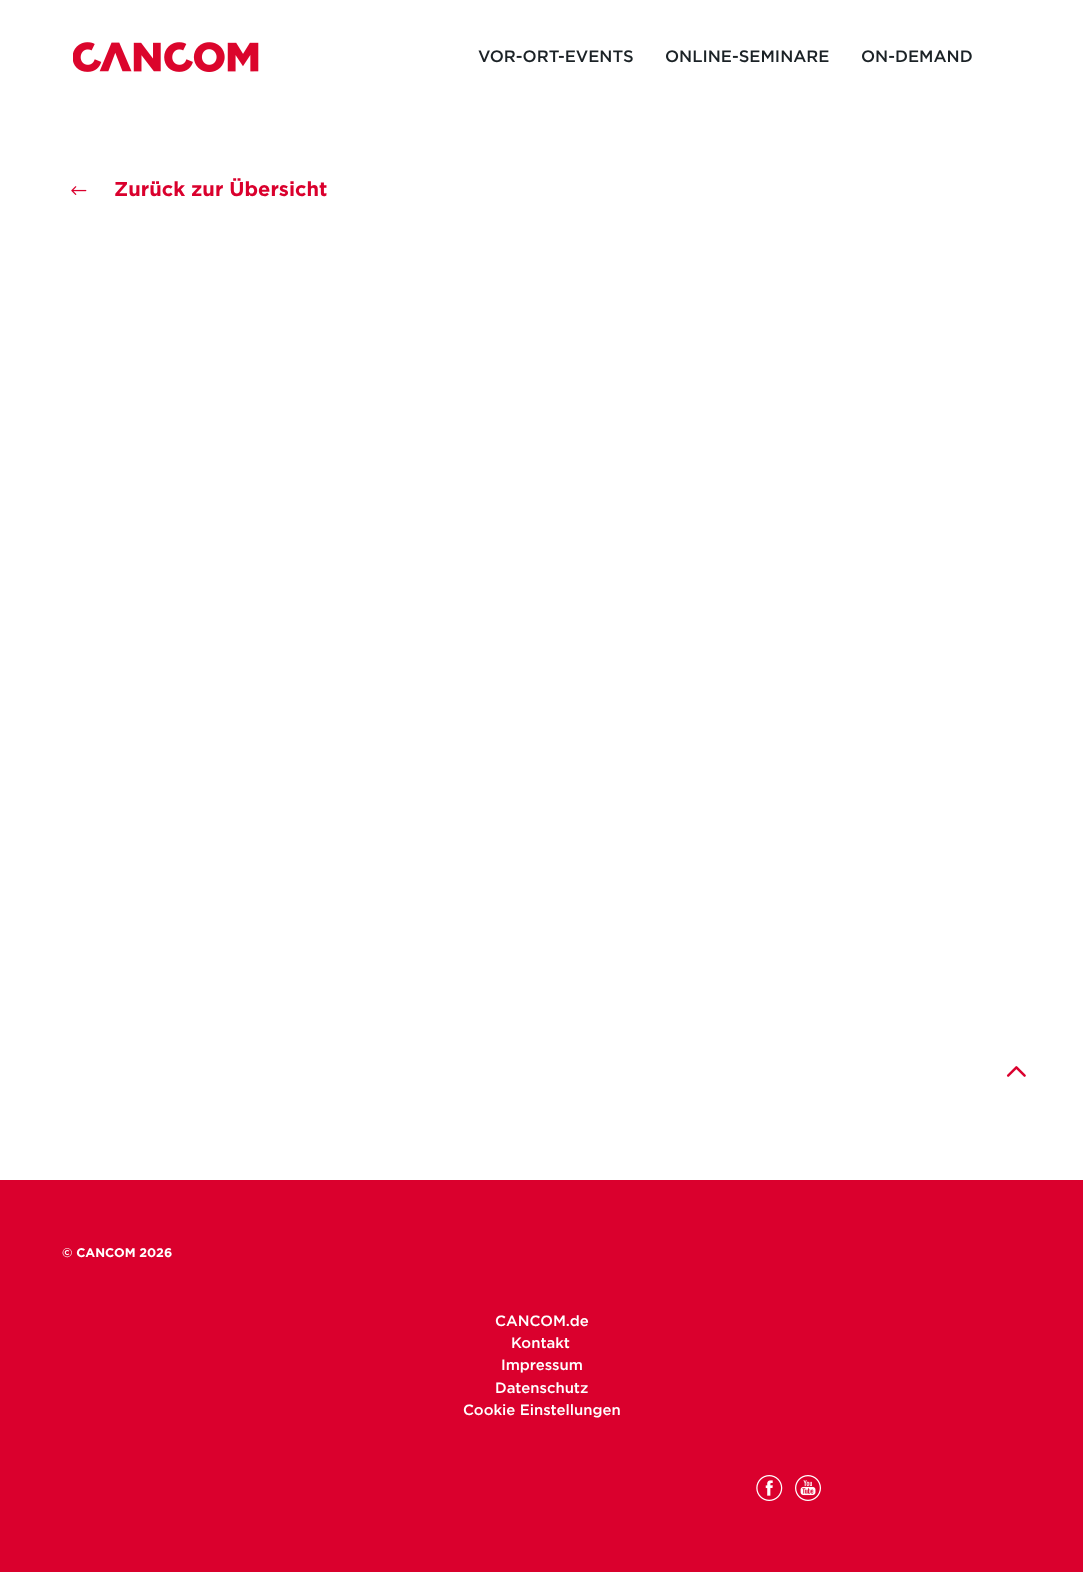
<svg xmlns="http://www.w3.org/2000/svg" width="1083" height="1572">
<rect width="100%" height="100%" fill="#fff"/>
<image x="73" y="42" width="186" height="30" href="media/1.png"/>
<text x="478" y="62" style="font-family:'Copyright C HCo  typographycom';font-size:16.6px;font-weight:300;fill:#1b2226">VOR-ORT-EVENTS</text>
<text x="665" y="62" style="font-family:'Copyright C HCo  typographycom';font-size:16.6px;font-weight:300;fill:#1b2226">ONLINE-SEMINARE</text>
<text x="861" y="62" style="font-family:'Copyright C HCo  typographycom';font-size:16.6px;font-weight:300;fill:#1b2226">ON-DEMAND</text>
<image x="71" y="186" width="16" height="9" href="media/2.png"/>
<text x="114" y="196" style="font-family:'Copyright C HCo  typographycom';font-size:20.1px;fill:#da002d">Zurück zur Übersicht</text>
<image x="1006" y="1066" width="20" height="11" href="media/3.png"/>
<rect y="1180" width="1083" height="392" fill="#da002d"/>
<text x="62" y="1257" style="font-family:'Copyright C HCo  typographycom';font-size:12.5px;fill:#fff">© CANCOM 2026</text>
<text x="495" y="1326" style="font-family:'Copyright C HCo  typographycom';font-size:14.9px;font-weight:300;fill:#fff">CANCOM.de</text>
<text x="511" y="1348" style="font-family:'Copyright C HCo  typographycom';font-size:14.9px;font-weight:300;fill:#fff">Kontakt</text>
<text x="501" y="1370" style="font-family:'Copyright C HCo  typographycom';font-size:14.9px;font-weight:300;fill:#fff">Impressum</text>
<text x="495" y="1393" style="font-family:'Copyright C HCo  typographycom';font-size:14.9px;font-weight:300;fill:#fff">Datenschutz</text>
<text x="463" y="1415" style="font-family:'Copyright C HCo  typographycom';font-size:14.9px;font-weight:300;fill:#fff">Cookie Einstellungen</text>
<image x="756" y="1475" width="27" height="26" href="media/4.png"/>
<image x="795" y="1475" width="26" height="26" href="media/5.png"/>
</svg>
